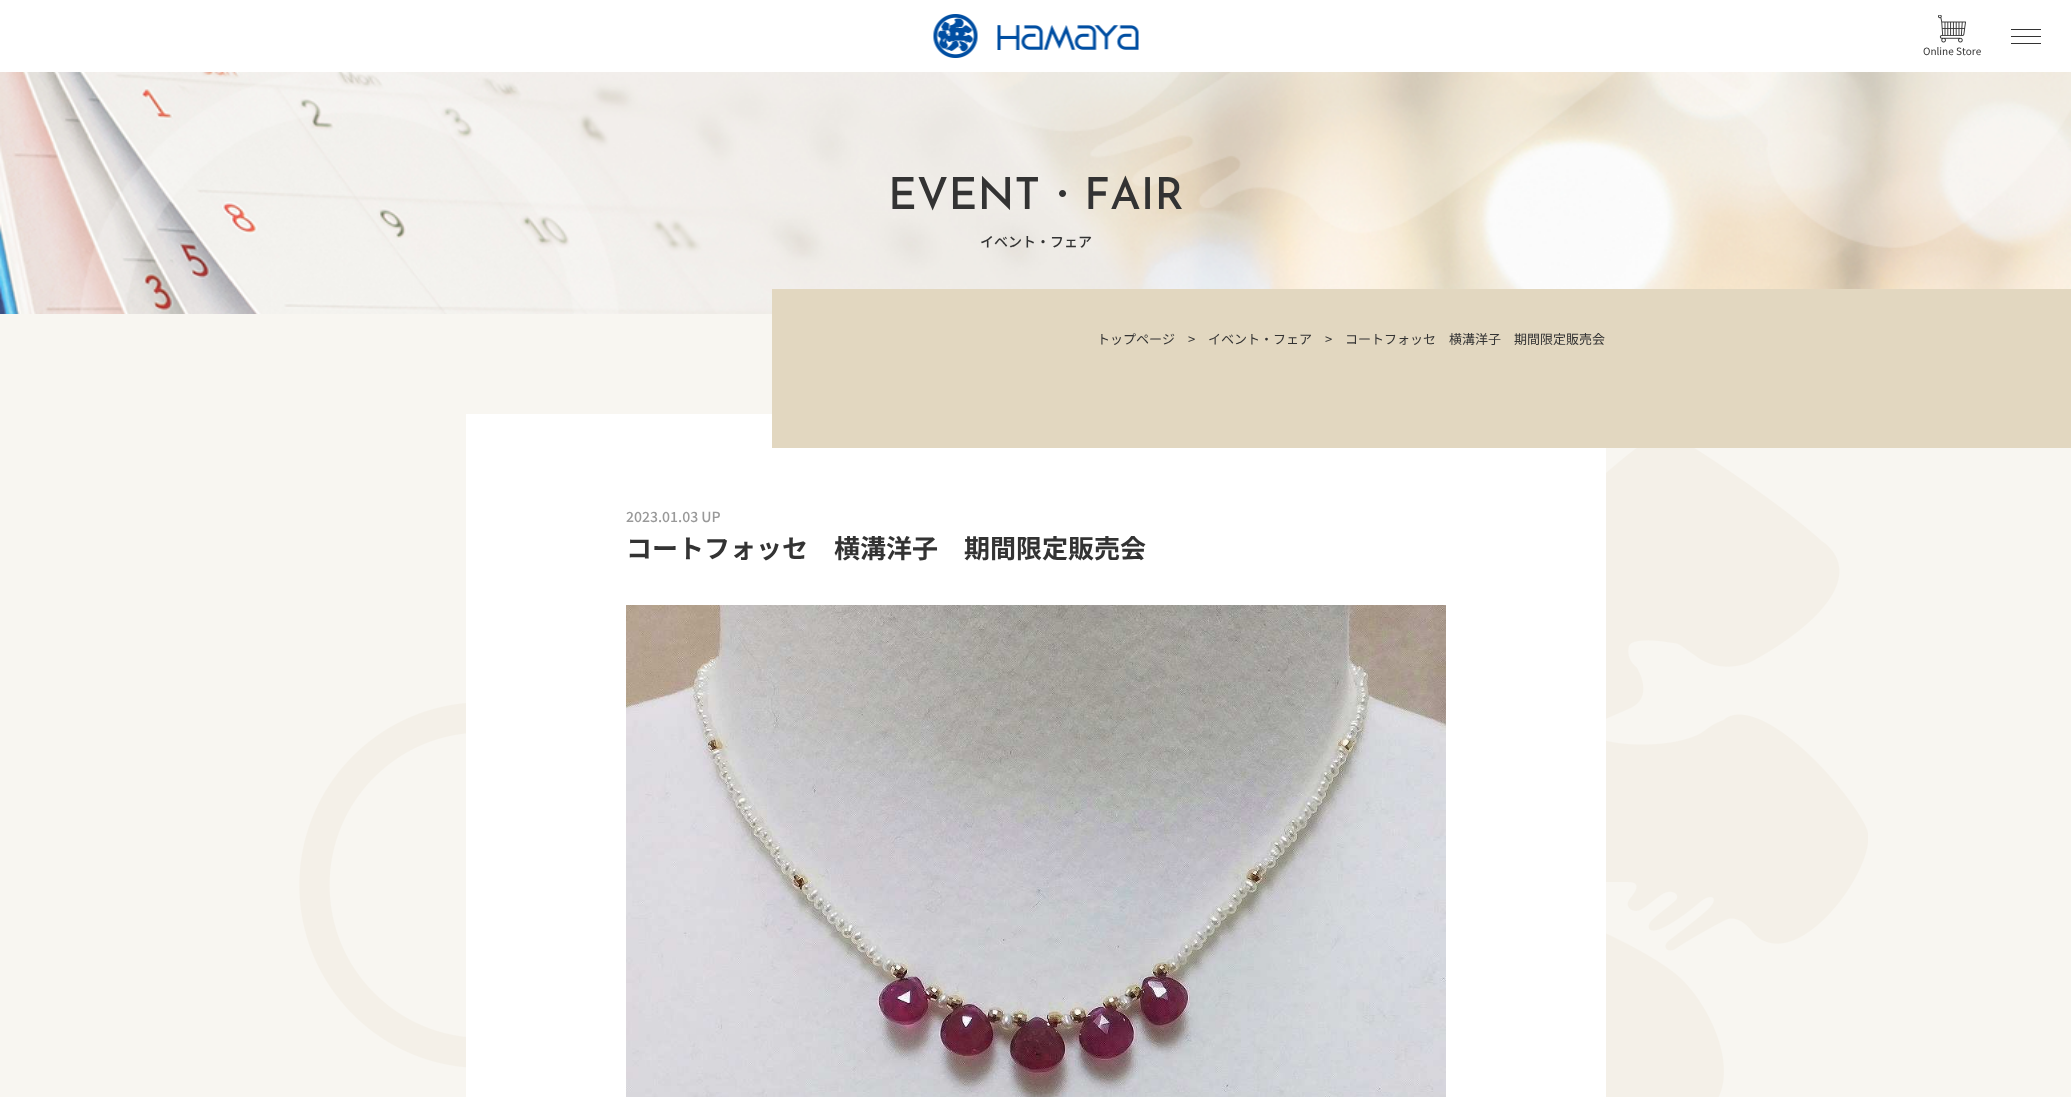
<svg xmlns="http://www.w3.org/2000/svg" width="2071" height="1097">
<style>*{font-kerning:none!important;font-variant-ligatures:none!important}</style>
<rect width="100%" height="100%" fill="#f8f6f1"/>
<rect width="2071" height="72" fill="#fff"/>
<image x="933" y="14" width="206" height="44" href="media/1.png"/>
<rect x="2011" y="29" width="30" height="1" fill="#333"/>
<rect x="2011" y="36" width="30" height="1" fill="#333"/>
<rect x="2011" y="43" width="30" height="1" fill="#333"/>
<image x="1938" y="15" width="28" height="28" href="media/2.png"/>
<text x="1923" y="55" style="font-family:Noto Sans JP;font-size:10px;fill:#333">Online Store</text>
<image x="0" y="72" width="2071" height="242" href="media/3.png"/>
<text x="888" y="209" style="font-family:Josefin Sans;font-size:44px;font-weight:100;fill:#333">EVENT</text>
<text x="1040" y="209" style="font-family:WenQuanYi Zen Hei;font-size:44px;font-weight:500;fill:#333">・</text>
<text x="1084" y="209" style="font-family:Josefin Sans;font-size:44px;font-weight:100;fill:#333">FAIR</text>
<text x="980" y="247" style="font-family:Noto Sans JP;font-size:14px;font-weight:500;fill:#333">イベント・フェア</text>
<image x="299" y="448" width="1569" height="649" href="media/5.png"/>
<rect x="466" y="414" width="1140" height="683" fill="#fff"/>
<rect x="772" y="289" width="1299" height="159" fill="#e2d7c0"/>
<text x="1097" y="344" style="font-family:Noto Sans JP;font-size:13px;fill:#333">トップページ</text>
<text x="1188" y="344" style="font-family:Noto Sans JP;font-size:13px;fill:#333">&gt;</text>
<text x="1208" y="344" style="font-family:Noto Sans JP;font-size:13px;fill:#333">イベント・フェア</text>
<text x="1325" y="344" style="font-family:Noto Sans JP;font-size:13px;fill:#333">&gt;</text>
<text x="1345" y="344" style="font-family:Noto Sans JP;font-size:13px;fill:#333">コートフォッセ　横溝洋子　期間限定販売会</text>
<text x="626" y="522" style="font-family:Noto Sans JP;font-size:14px;font-weight:500;fill:#999">2023.01.03 UP</text>
<text x="626" y="558" style="font-family:Noto Sans JP;font-size:26px;font-weight:bold;fill:#333">コートフォッセ　横溝洋子　期間限定販売会</text>
<image x="626" y="605" width="820" height="492" href="media/4.png"/>
</svg>
